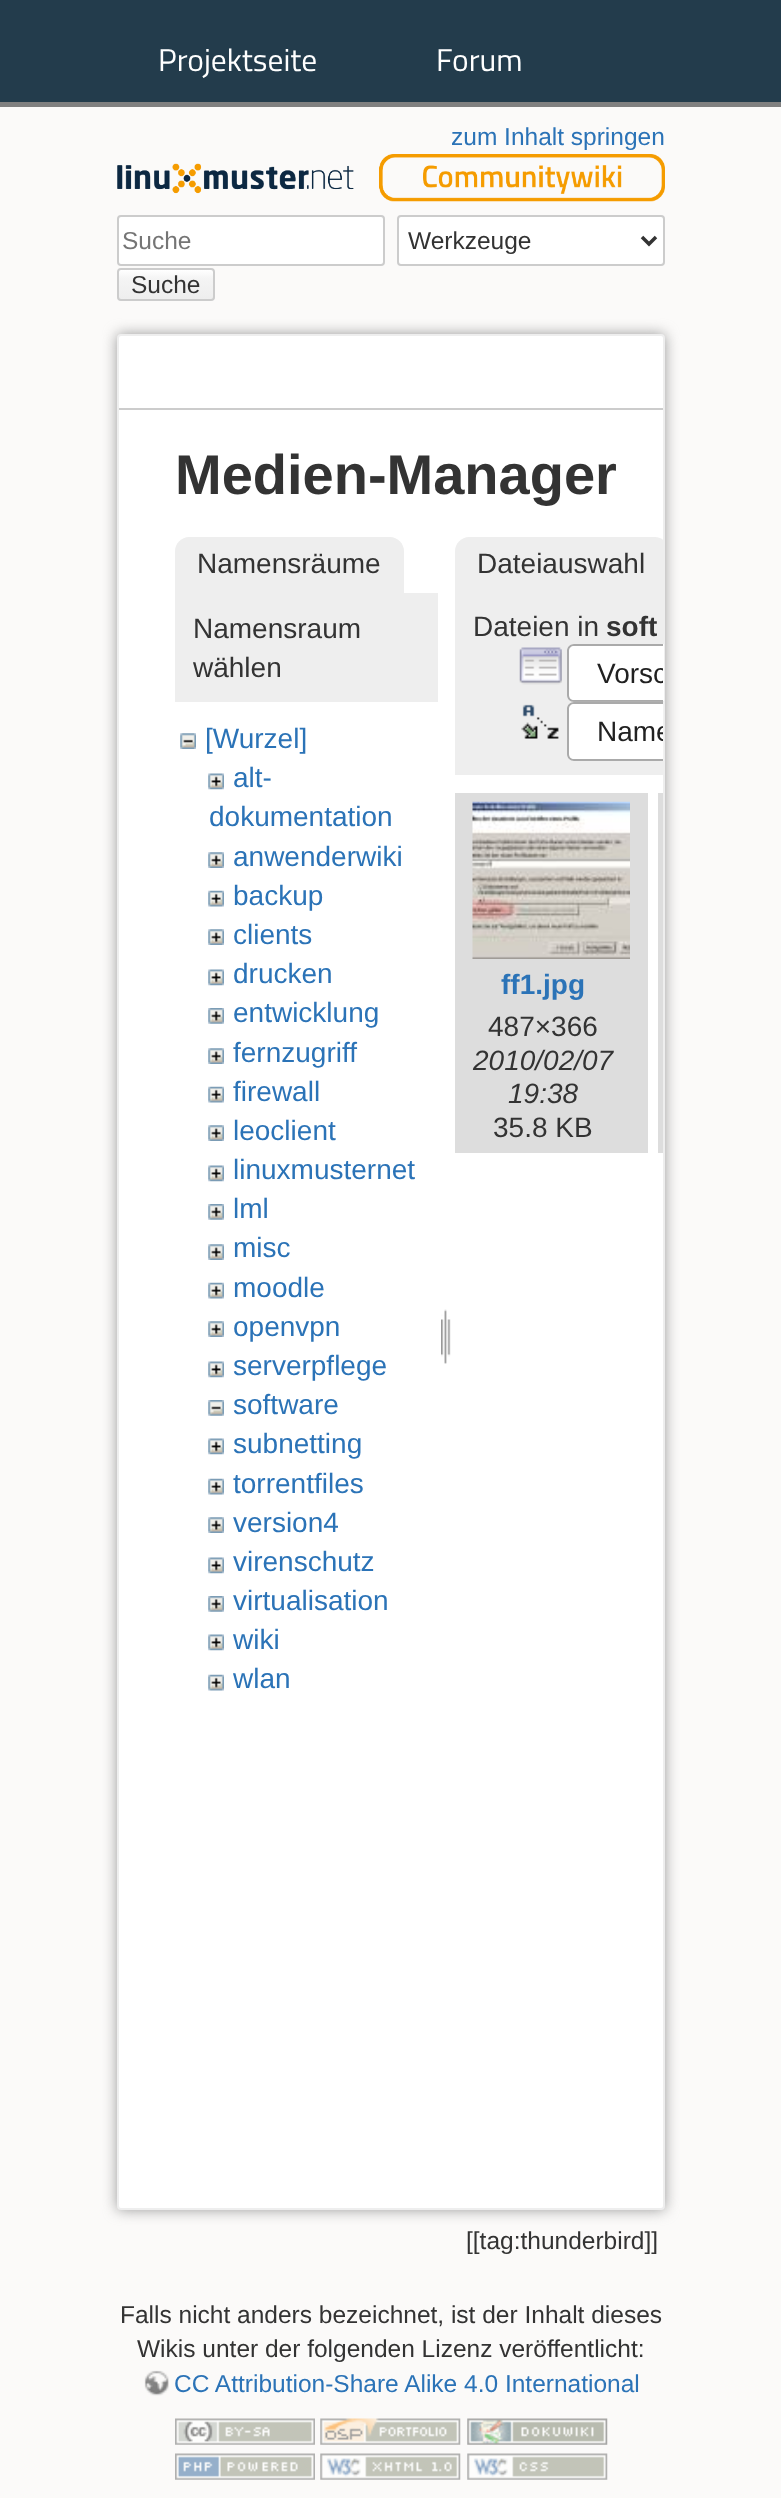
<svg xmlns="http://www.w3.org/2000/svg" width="781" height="2498">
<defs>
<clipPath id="clip1"><rect x="117" y="268" width="98" height="33" rx="4"/></clipPath>
<linearGradient id="g1" gradientUnits="userSpaceOnUse" x1="166" y1="270" x2="166" y2="299"><stop offset="0" stop-color="#fff"/><stop offset="0.3" stop-color="#f4f4f4"/><stop offset="0.99" stop-color="#eee"/><stop offset="0.99" stop-color="#ccc"/></linearGradient>
<clipPath id="clip2"><rect x="119" y="336" width="544" height="1873" rx="2"/></clipPath>
</defs>
<rect width="100%" height="100%" fill="#fbfaf9"/>
<rect width="781" height="102" fill="#233c4c"/>
<rect y="102" width="781" height="5" fill="#808080"/>
<text x="158" y="71" style="font-family:Titillium Web;font-size:31.5px;fill:#fff">Projektseite</text>
<text x="436" y="71" style="font-family:Titillium Web;font-size:31.5px;fill:#fff">Forum</text>
<text x="451" y="145" style="font-family:Liberation Sans;font-size:24.5px;fill:#2b73b7">zum Inhalt springen</text>
<image x="117" y="154" width="548" height="48" href="media/1.png"/>
<rect x="118" y="216" width="266" height="49" rx="3" fill="#fff" stroke="#ccc" stroke-width="2"/>
<text x="122" y="249" style="font-family:Liberation Sans;font-size:24.5px;fill:#757575">Suche</text>
<g clip-path="url(#clip1)">
<rect x="117" y="270" width="98" height="29" fill="url(#g1)"/>
</g>
<rect x="118" y="269" width="96" height="31" rx="3" fill="none" stroke="#ccc" stroke-width="2"/>
<text x="131" y="293" style="font-family:Liberation Sans;font-size:24.5px;fill:#333">Suche</text>
<rect x="398" y="216" width="266" height="49" rx="3" fill="#fff" stroke="#ccc" stroke-width="2"/>
<path d="M642 237l7 7l7-7" fill="none" stroke="#333" stroke-width="3.5"/>
<text x="408" y="249" style="font-family:Liberation Sans;font-size:24.5px;fill:#333">Werkzeuge</text>
<rect x="117" y="334" width="548" height="1876" rx="4" fill="#999" filter="blur(7px)"/>
<rect x="118" y="335" width="546" height="1874" rx="3" fill="#fff" stroke="#eee" stroke-width="2"/>
<rect x="119" y="408" width="544" height="2" fill="#ccc"/>
<text x="175" y="494" style="font-family:Liberation Sans;font-size:56px;font-weight:bold;fill:#333">Medien-Manager</text>
<path d="M189 537h201c7.5 0 14 6.5 14 14v42h-229v-42c0-7.5 6.5-14 14-14z" fill="#eee"/>
<text x="197" y="573" style="font-family:Liberation Sans;font-size:28px;fill:#333">Namensräume</text>
<rect x="175" y="593" width="263" height="109" fill="#eee"/>
<text x="193" y="638" style="font-family:Liberation Sans;font-size:28px;fill:#333">Namensraum</text>
<text x="193" y="677" style="font-family:Liberation Sans;font-size:28px;fill:#333">wählen</text>
<image x="180" y="733" width="16" height="16" href="media/2.png"/>
<text x="205" y="748" style="font-family:Liberation Sans;font-size:28px;fill:#2b73b7">[Wurzel]</text>
<image x="208" y="773" width="16" height="17" href="media/3.png"/>
<text x="233" y="787" style="font-family:Liberation Sans;font-size:28px;fill:#2b73b7">alt-</text>
<text x="209" y="826" style="font-family:Liberation Sans;font-size:28px;fill:#2b73b7">dokumentation</text>
<image x="208" y="852" width="16" height="16" href="media/4.png"/>
<text x="233" y="866" style="font-family:Liberation Sans;font-size:28px;fill:#2b73b7">anwenderwiki</text>
<image x="208" y="890" width="16" height="17" href="media/5.png"/>
<text x="233" y="905" style="font-family:Liberation Sans;font-size:28px;fill:#2b73b7">backup</text>
<image x="208" y="929" width="16" height="16" href="media/4.png"/>
<text x="233" y="944" style="font-family:Liberation Sans;font-size:28px;fill:#2b73b7">clients</text>
<image x="208" y="969" width="16" height="17" href="media/3.png"/>
<text x="233" y="983" style="font-family:Liberation Sans;font-size:28px;fill:#2b73b7">drucken</text>
<image x="208" y="1008" width="16" height="16" href="media/6.png"/>
<text x="233" y="1022" style="font-family:Liberation Sans;font-size:28px;fill:#2b73b7">entwicklung</text>
<image x="208" y="1048" width="16" height="16" href="media/4.png"/>
<text x="233" y="1062" style="font-family:Liberation Sans;font-size:28px;fill:#2b73b7">fernzugriff</text>
<image x="208" y="1086" width="16" height="17" href="media/5.png"/>
<text x="233" y="1101" style="font-family:Liberation Sans;font-size:28px;fill:#2b73b7">firewall</text>
<image x="208" y="1125" width="16" height="16" href="media/4.png"/>
<text x="233" y="1140" style="font-family:Liberation Sans;font-size:28px;fill:#2b73b7">leoclient</text>
<image x="208" y="1165" width="16" height="17" href="media/3.png"/>
<text x="233" y="1179" style="font-family:Liberation Sans;font-size:28px;fill:#2b73b7">linuxmusternet</text>
<image x="208" y="1204" width="16" height="16" href="media/6.png"/>
<text x="233" y="1218" style="font-family:Liberation Sans;font-size:28px;fill:#2b73b7">lml</text>
<image x="208" y="1244" width="16" height="16" href="media/4.png"/>
<text x="233" y="1257" style="font-family:Liberation Sans;font-size:28px;fill:#2b73b7">misc</text>
<image x="208" y="1282" width="16" height="17" href="media/5.png"/>
<text x="233" y="1297" style="font-family:Liberation Sans;font-size:28px;fill:#2b73b7">moodle</text>
<image x="208" y="1321" width="16" height="16" href="media/4.png"/>
<text x="233" y="1336" style="font-family:Liberation Sans;font-size:28px;fill:#2b73b7">openvpn</text>
<image x="208" y="1361" width="16" height="17" href="media/3.png"/>
<text x="233" y="1375" style="font-family:Liberation Sans;font-size:28px;fill:#2b73b7">serverpflege</text>
<image x="208" y="1400" width="16" height="16" href="media/7.png"/>
<text x="233" y="1414" style="font-family:Liberation Sans;font-size:28px;fill:#2b73b7">software</text>
<image x="208" y="1438" width="16" height="17" href="media/3.png"/>
<text x="233" y="1453" style="font-family:Liberation Sans;font-size:28px;fill:#2b73b7">subnetting</text>
<image x="208" y="1478" width="16" height="17" href="media/5.png"/>
<text x="233" y="1493" style="font-family:Liberation Sans;font-size:28px;fill:#2b73b7">torrentfiles</text>
<image x="208" y="1517" width="16" height="16" href="media/4.png"/>
<text x="233" y="1532" style="font-family:Liberation Sans;font-size:28px;fill:#2b73b7">version4</text>
<image x="208" y="1557" width="16" height="17" href="media/3.png"/>
<text x="233" y="1571" style="font-family:Liberation Sans;font-size:28px;fill:#2b73b7">virenschutz</text>
<image x="208" y="1596" width="16" height="16" href="media/6.png"/>
<text x="233" y="1610" style="font-family:Liberation Sans;font-size:28px;fill:#2b73b7">virtualisation</text>
<image x="208" y="1634" width="16" height="17" href="media/3.png"/>
<text x="233" y="1649" style="font-family:Liberation Sans;font-size:28px;fill:#2b73b7">wiki</text>
<image x="208" y="1674" width="16" height="17" href="media/5.png"/>
<text x="233" y="1688" style="font-family:Liberation Sans;font-size:28px;fill:#2b73b7">wlan</text>
<image x="441" y="1309" width="10" height="55" href="media/8.png"/>
<g clip-path="url(#clip2)">
<path d="M469 537h186c7.5 0 14 6.5 14 14v42h-214v-42c0-7.5 6.5-14 14-14z" fill="#eee"/>
</g>
<text x="477" y="573" style="font-family:Liberation Sans;font-size:28px;fill:#333">Dateiauswahl</text>
<rect x="455" y="593" width="208" height="182" fill="#eee"/>
<text x="473" y="636" style="font-family:Liberation Sans;font-size:28px;fill:#333">Dateien in</text>
<text x="606" y="636" style="font-family:Liberation Sans;font-size:28px;font-weight:bold;fill:#333">soft</text>
<image x="519" y="647" width="43" height="38" href="media/9.png"/>
<path d="M574 644h89v58h-89c-4 0-7-3-7-7v-44c0-4 3-7 7-7z" fill="#fff"/>
<rect x="571" y="644" width="93" height="57" fill="#fff"/>
<path d="M574 644c-4 0-7 3-7 7v44c0 4 3 7 7 7h89v-2h-89c-3 0-5-2-5-5v-44c0-3 2-5 5-5h89v-2z" fill="#aaa"/>
<g clip-path="url(#clip2)">
<text x="597" y="683" style="font-family:Liberation Sans;font-size:28px;fill:#212121">Vorsc</text>
</g>
<image x="521" y="704" width="38" height="35" href="media/10.png"/>
<image x="567" y="701" width="97" height="60" href="media/11.png"/>
<path d="M574 702c-4 0-7 3-7 7v45c0 4 3 7 7 7h89v-2h-89c-3 0-5-2-5-5v-45c0-3 2-5 5-5h89v-2z" fill="#aaa"/>
<g clip-path="url(#clip2)">
<text x="597" y="741" style="font-family:Liberation Sans;font-size:28px;fill:#212121">Name</text>
</g>
<rect x="455" y="793" width="193" height="360" fill="#ddd"/>
<image x="472" y="801" width="158" height="158" href="media/12.png"/>
<text x="501" y="994" style="font-family:Liberation Sans;font-size:28px;font-weight:bold;fill:#2b73b7">ff1.jpg</text>
<text x="488" y="1036" style="font-family:Liberation Sans;font-size:28px;fill:#333">487×366</text>
<text x="473" y="1070" style="font-family:Liberation Sans;font-size:28px;font-style:italic;fill:#333">2010/02/07</text>
<text x="508" y="1103" style="font-family:Liberation Sans;font-size:28px;font-style:italic;fill:#333">19:38</text>
<text x="493" y="1137" style="font-family:Liberation Sans;font-size:28px;fill:#333">35.8 KB</text>
<rect x="658" y="793" width="5" height="360" fill="#ddd"/>
<text x="466" y="2249" style="font-family:Liberation Sans;font-size:24.5px;fill:#333">[[tag:thunderbird]]</text>
<text x="120" y="2323" style="font-family:Liberation Sans;font-size:24.5px;fill:#333">Falls nicht anders bezeichnet, ist der Inhalt dieses</text>
<text x="137" y="2357" style="font-family:Liberation Sans;font-size:24.5px;fill:#333">Wikis unter der folgenden Lizenz veröffentlicht:</text>
<image x="144" y="2370" width="25" height="26" href="media/13.png"/>
<text x="174" y="2392" style="font-family:Liberation Sans;font-size:24.5px;fill:#2b73b7">CC Attribution-Share Alike 4.0 International</text>
<image x="175" y="2418" width="140" height="27" href="media/14.png"/>
<image x="320" y="2418" width="141" height="27" href="media/15.png"/>
<image x="467" y="2418" width="141" height="27" href="media/16.png"/>
<image x="175" y="2453" width="140" height="27" href="media/17.png"/>
<image x="320" y="2453" width="141" height="27" href="media/18.png"/>
<image x="467" y="2453" width="141" height="27" href="media/19.png"/>
</svg>
